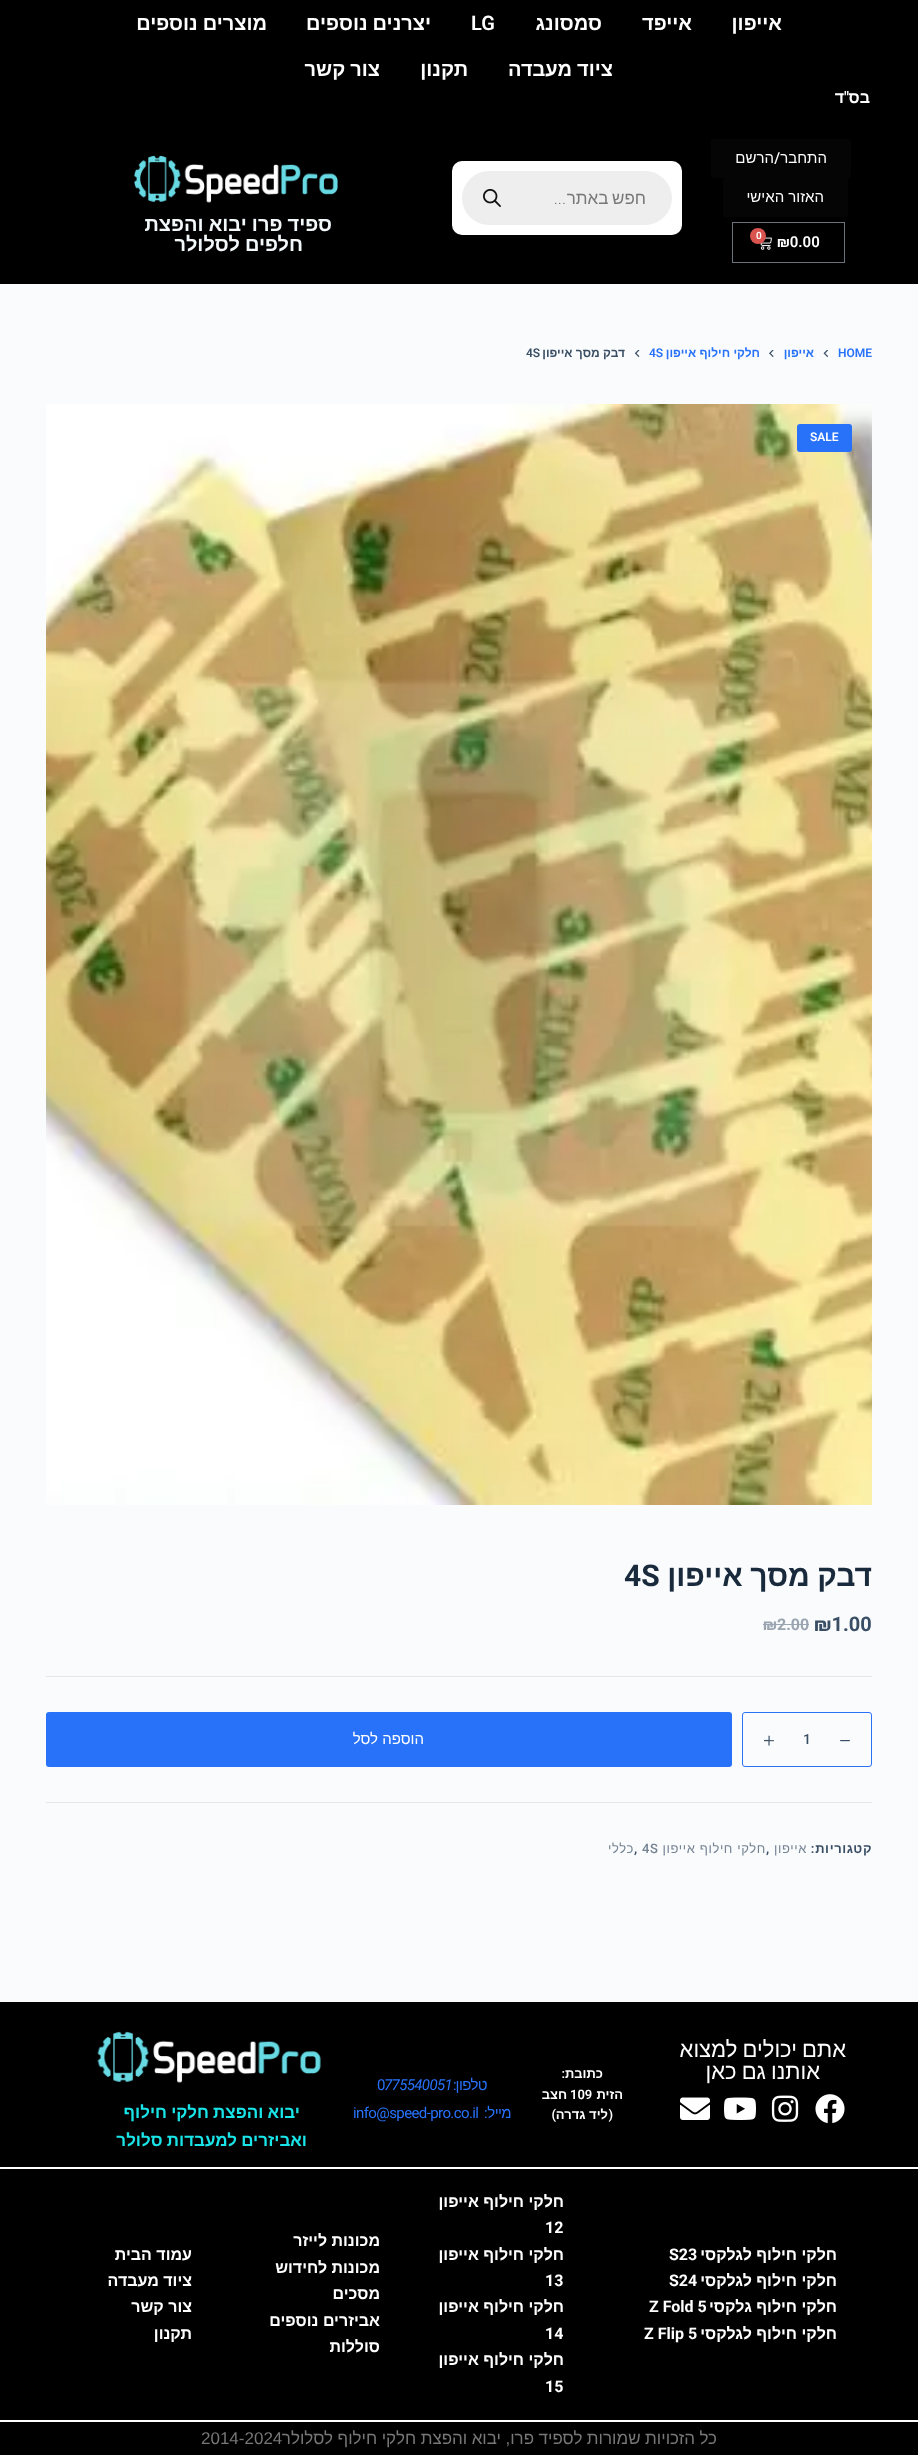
<svg xmlns="http://www.w3.org/2000/svg" width="918" height="2455">
<rect width="100%" height="100%" fill="#fafbfc"/>
<rect width="918" height="284" fill="#000"/>
<text x="782" y="30" style="font-family:Liberation Sans;font-size:20px;font-weight:bold;direction:rtl;fill:#fff">אייפון</text>
<text x="692" y="30" style="font-family:Liberation Sans;font-size:20px;font-weight:bold;direction:rtl;fill:#fff">אייפד</text>
<text x="602" y="30" style="font-family:Liberation Sans;font-size:20px;font-weight:bold;direction:rtl;fill:#fff">סמסונג</text>
<text x="471" y="30" style="font-family:Roboto;font-size:20px;font-weight:600;fill:#fff">LG</text>
<text x="431" y="30" word-spacing="-0.5" style="font-family:Liberation Sans;font-size:20px;font-weight:bold;direction:rtl;fill:#fff">יצרנים נוספים</text>
<text x="267" y="30" word-spacing="-0.5" style="font-family:Liberation Sans;font-size:20px;font-weight:bold;direction:rtl;fill:#fff">מוצרים נוספים</text>
<text x="613" y="76" word-spacing="-0.5" style="font-family:Liberation Sans;font-size:20px;font-weight:bold;direction:rtl;fill:#fff">ציוד מעבדה</text>
<text x="468" y="76" style="font-family:Liberation Sans;font-size:20px;font-weight:bold;direction:rtl;fill:#fff">תקנון</text>
<text x="380" y="76" word-spacing="-0.5" style="font-family:Liberation Sans;font-size:20px;font-weight:bold;direction:rtl;fill:#fff">צור קשר</text>
<text x="870" y="103" style="font-family:Liberation Sans;font-size:16px;font-weight:bold;direction:rtl;fill:#fff">בס</text>
<text x="849" y="103" style="font-family:Roboto;font-size:16px;font-weight:600;direction:rtl;fill:#fff">"</text>
<text x="844" y="103" style="font-family:Liberation Sans;font-size:16px;font-weight:bold;direction:rtl;fill:#fff">ד</text>
<rect x="711" y="139" width="140" height="39" rx="3" fill="#050505"/>
<text x="827" y="163" style="font-family:Liberation Sans;font-size:15px;direction:rtl;fill:#fff">התחבר</text>
<text x="780" y="163" style="font-family:Roboto;font-size:15px;font-weight:500;direction:rtl;fill:#fff">/</text>
<text x="774" y="163" style="font-family:Liberation Sans;font-size:15px;direction:rtl;fill:#fff">הרשם</text>
<rect x="723" y="178" width="125" height="39" rx="3" fill="#050505"/>
<text x="824" y="202" style="font-family:Liberation Sans;font-size:15px;direction:rtl;fill:#fff">האזור האישי</text>
<rect x="732.5" y="222.5" width="112" height="40" fill="none" stroke="#69727d"/>
<text x="777" y="247" style="font-family:Roboto;font-size:15px;font-weight:600;fill:#fff">₪0.00</text>
<image x="760" y="237" width="12" height="13" href="media/1.png"/>
<circle cx="758" cy="236" r="8" fill="#d9534f"/>
<text x="756" y="239" style="font-family:Roboto;font-size:10px;font-weight:600;fill:#fff">0</text>
<rect x="452" y="161" width="230" height="74" rx="10" fill="#fff"/>
<rect x="462" y="171" width="210" height="54" rx="27" fill="#eee"/>
<text x="646" y="204" word-spacing="-1" style="font-family:Liberation Sans;font-size:17px;direction:rtl;fill:#777">חפש באתר</text>
<text x="566" y="204" style="font-family:Roboto;font-size:17px;font-weight:300;direction:rtl;fill:#777">...</text>
<image x="483" y="189" width="18" height="18" href="media/2.png"/>
<image x="134" y="155" width="204" height="48" href="media/3.png"/>
<text x="332" y="231" word-spacing="-0.5" style="font-family:Liberation Sans;font-size:20px;font-weight:bold;direction:rtl;fill:#f3f8fb">ספיד פרו יבוא והפצת</text>
<text x="303" y="251" word-spacing="-0.5" style="font-family:Liberation Sans;font-size:20px;font-weight:bold;direction:rtl;fill:#f3f8fb">חלפים לסלולר</text>
<text x="838" y="357" style="font-family:Roboto;font-size:12px;font-weight:600;fill:#2872fa">HOME</text>
<image x="823" y="350" width="5" height="8" href="media/4.png"/>
<text x="814" y="357" style="font-family:Liberation Sans;font-size:12px;font-weight:bold;direction:rtl;fill:#2872fa">אייפון</text>
<image x="769" y="350" width="5" height="8" href="media/5.png"/>
<text x="760" y="357" style="font-family:Liberation Sans;font-size:12px;font-weight:bold;direction:rtl;fill:#2872fa">חלקי חילוף אייפון</text>
<text x="649" y="357" style="font-family:Roboto;font-size:12px;font-weight:600;fill:#2872fa">4S</text>
<image x="634" y="350" width="6" height="8" href="media/6.png"/>
<text x="625" y="357" style="font-family:Liberation Sans;font-size:12px;font-weight:bold;direction:rtl;fill:#3a4f66">דבק מסך אייפון</text>
<text x="526" y="357" style="font-family:Roboto;font-size:12px;font-weight:600;fill:#3a4f66">4S</text>
<image x="46" y="404" width="826" height="1101" href="media/7.png"/>
<rect x="797" y="424" width="55" height="28" rx="3" fill="#2872fa"/>
<text x="810" y="441" style="font-family:Roboto;font-size:12px;font-weight:600;fill:#fff">SALE</text>
<text x="872" y="1586" word-spacing="-1" style="font-family:Liberation Sans;font-size:30px;font-weight:bold;direction:rtl;fill:#192a3d">דבק מסך אייפון</text>
<text x="624" y="1586" style="font-family:Roboto;font-size:30px;font-weight:bold;fill:#192a3d">4S</text>
<text x="814" y="1631" style="font-family:Roboto;font-size:20px;font-weight:bold;fill:#3a4f66">₪1.00</text>
<text x="763" y="1630" style="font-family:Roboto;font-size:16px;font-weight:bold;fill:#9aa5b1">₪2.00</text>
<rect x="763" y="1624" width="46" height="1" fill="#9aa5b1"/>
<rect x="46" y="1676" width="826" height="1" fill="#e1e8ed"/>
<rect x="742.5" y="1712.5" width="129" height="54" rx="2.5" fill="none" stroke="#2872fa"/>
<image x="840" y="1740" width="10" height="2" href="media/8.png"/>
<text x="803" y="1744" style="font-family:Roboto;font-size:14px;font-weight:500;fill:#3a4f66">1</text>
<image x="764" y="1735" width="10" height="11" href="media/9.png"/>
<rect x="46" y="1712" width="686" height="55" rx="3" fill="#2872fa"/>
<text x="424" y="1744" style="font-family:Liberation Sans;font-size:15px;direction:rtl;fill:#fff">הוספה לסל</text>
<rect x="46" y="1802" width="826" height="1" fill="#e1e8ed"/>
<text x="872" y="1853" style="font-family:Liberation Sans;font-size:13px;font-weight:bold;letter-spacing:0.6px;direction:rtl;fill:#3a4f66">קטגוריות</text>
<text x="815" y="1853" style="font-family:Roboto;font-size:13px;font-weight:bold;letter-spacing:0.6px;direction:rtl;fill:#3a4f66">:</text>
<text x="807" y="1853" style="font-family:Liberation Sans;font-size:13px;letter-spacing:0.6px;direction:rtl;fill:#748393">אייפון</text>
<text x="766" y="1853" style="font-family:Roboto;font-size:13px;font-weight:bold;letter-spacing:0.6px;fill:#3a4f66">,</text>
<text x="766" y="1853" style="font-family:Liberation Sans;font-size:13px;letter-spacing:0.6px;direction:rtl;fill:#748393">חלקי חילוף אייפון</text>
<text x="642" y="1853" style="font-family:Roboto;font-size:13px;font-weight:500;letter-spacing:0.6px;fill:#748393">4S</text>
<text x="634" y="1853" style="font-family:Roboto;font-size:13px;font-weight:bold;letter-spacing:0.6px;fill:#3a4f66">,</text>
<text x="634" y="1853" style="font-family:Liberation Sans;font-size:13px;letter-spacing:0.6px;direction:rtl;fill:#748393">כללי</text>
<rect y="2002" width="918" height="165" fill="#000"/>
<text x="846" y="2057" word-spacing="-1" style="font-family:Liberation Sans;font-size:22px;direction:rtl;fill:#fff">אתם יכולים למצוא</text>
<text x="820" y="2079" word-spacing="-1" style="font-family:Liberation Sans;font-size:22px;direction:rtl;fill:#fff">אותנו גם כאן</text>
<image x="815" y="2094" width="30" height="30" href="media/10.png"/>
<image x="771" y="2095" width="28" height="27" href="media/11.png"/>
<image x="724" y="2097" width="32" height="23" href="media/12.png"/>
<image x="680" y="2097" width="30" height="23" href="media/13.png"/>
<text x="603" y="2078" style="font-family:Liberation Sans;font-size:13px;font-weight:bold;direction:rtl;fill:#fff">כתובת</text>
<text x="565" y="2078" style="font-family:Roboto;font-size:13px;font-weight:600;direction:rtl;fill:#fff">:</text>
<text x="623" y="2099" style="font-family:Liberation Sans;font-size:13px;font-weight:bold;direction:rtl;fill:#fff">הזית</text>
<text x="570" y="2099" style="font-family:Roboto;font-size:13px;font-weight:600;fill:#fff">109</text>
<text x="567" y="2099" style="font-family:Liberation Sans;font-size:13px;font-weight:bold;direction:rtl;fill:#fff">חצב</text>
<text x="613" y="2119" style="font-family:Roboto;font-size:13px;font-weight:600;direction:rtl;fill:#fff">(</text>
<text x="608" y="2119" style="font-family:Liberation Sans;font-size:13px;font-weight:bold;direction:rtl;fill:#fff">ליד גדרה</text>
<text x="556" y="2119" style="font-family:Roboto;font-size:13px;font-weight:600;direction:rtl;fill:#fff">)</text>
<text x="487" y="2090" style="font-family:Liberation Sans;font-size:15px;letter-spacing:-0.6px;direction:rtl;fill:#2872fa">טלפון</text>
<text x="456" y="2090" style="font-family:Roboto;font-size:15px;letter-spacing:-0.6px;direction:rtl;fill:#2872fa">:</text>
<text x="384" y="2090" style="font-family:Roboto;font-size:15px;font-style:italic;letter-spacing:-0.6px;fill:#2872fa">775540051</text>
<text x="377" y="2090" style="font-family:Roboto;font-size:15px;letter-spacing:-0.6px;fill:#2872fa">0</text>
<text x="511" y="2118" style="font-family:Liberation Sans;font-size:15px;letter-spacing:-0.6px;direction:rtl;fill:#2872fa">מייל</text>
<text x="487" y="2118" style="font-family:Roboto;font-size:15px;letter-spacing:-0.6px;direction:rtl;fill:#2872fa">:</text>
<text x="353" y="2118" style="font-family:Roboto;font-size:15px;letter-spacing:-0.6px;fill:#2872fa">info@speed-pro.co.il</text>
<image x="97" y="2031" width="224" height="52" href="media/14.png"/>
<text x="300" y="2118" word-spacing="-0.5" style="font-family:Liberation Sans;font-size:17px;font-weight:bold;direction:rtl;fill:#19e4e8">יבוא והפצת חלקי חילוף</text>
<text x="307" y="2146" word-spacing="-0.5" style="font-family:Liberation Sans;font-size:17px;font-weight:bold;direction:rtl;fill:#19e4e8">ואביזרים למעבדות סלולר</text>
<path d="M2 2169h916v251h-918v-251z" fill="#000"/>
<rect x="1" y="2167" width="917" height="2" fill="#fff"/>
<rect y="2420" width="917" height="2" fill="#fff"/>
<text x="837" y="2260" style="font-family:Liberation Sans;font-size:16px;font-weight:bold;direction:rtl;fill:#fff">חלקי חילוף לגלקסי</text>
<text x="669" y="2260" style="font-family:Roboto;font-size:16px;font-weight:bold;fill:#fff">S23</text>
<text x="837" y="2286" style="font-family:Liberation Sans;font-size:16px;font-weight:bold;direction:rtl;fill:#fff">חלקי חילוף לגלקסי</text>
<text x="669" y="2286" style="font-family:Roboto;font-size:16px;font-weight:bold;fill:#fff">S24</text>
<text x="837" y="2312" style="font-family:Liberation Sans;font-size:16px;font-weight:bold;direction:rtl;fill:#fff">חלקי חילוף גלקסי</text>
<text x="649" y="2312" style="font-family:Roboto;font-size:16px;font-weight:bold;fill:#fff">Z Fold 5</text>
<text x="837" y="2339" style="font-family:Liberation Sans;font-size:16px;font-weight:bold;direction:rtl;fill:#fff">חלקי חילוף לגלקסי</text>
<text x="644" y="2339" style="font-family:Roboto;font-size:16px;font-weight:bold;fill:#fff">Z Flip 5</text>
<text x="564" y="2207" style="font-family:Liberation Sans;font-size:16px;font-weight:bold;direction:rtl;fill:#fff">חלקי חילוף אייפון</text>
<text x="545" y="2233" style="font-family:Roboto;font-size:16px;font-weight:bold;fill:#fff">12</text>
<text x="564" y="2260" style="font-family:Liberation Sans;font-size:16px;font-weight:bold;direction:rtl;fill:#fff">חלקי חילוף אייפון</text>
<text x="545" y="2286" style="font-family:Roboto;font-size:16px;font-weight:bold;fill:#fff">13</text>
<text x="564" y="2312" style="font-family:Liberation Sans;font-size:16px;font-weight:bold;direction:rtl;fill:#fff">חלקי חילוף אייפון</text>
<text x="545" y="2339" style="font-family:Roboto;font-size:16px;font-weight:bold;fill:#fff">14</text>
<text x="564" y="2365" style="font-family:Liberation Sans;font-size:16px;font-weight:bold;direction:rtl;fill:#fff">חלקי חילוף אייפון</text>
<text x="545" y="2392" style="font-family:Roboto;font-size:16px;font-weight:bold;fill:#fff">15</text>
<text x="380" y="2246" style="font-family:Liberation Sans;font-size:16px;font-weight:bold;direction:rtl;fill:#fff">מכונות לייזר</text>
<text x="380" y="2273" style="font-family:Liberation Sans;font-size:16px;font-weight:bold;direction:rtl;fill:#fff">מכונות לחידוש</text>
<text x="380" y="2299" style="font-family:Liberation Sans;font-size:16px;font-weight:bold;direction:rtl;fill:#fff">מסכים</text>
<text x="380" y="2326" style="font-family:Liberation Sans;font-size:16px;font-weight:bold;direction:rtl;fill:#fff">אביזרים נוספים</text>
<text x="380" y="2352" style="font-family:Liberation Sans;font-size:16px;font-weight:bold;direction:rtl;fill:#fff">סוללות</text>
<text x="192" y="2260" style="font-family:Liberation Sans;font-size:16px;font-weight:bold;direction:rtl;fill:#fff">עמוד הבית</text>
<text x="192" y="2286" style="font-family:Liberation Sans;font-size:16px;font-weight:bold;direction:rtl;fill:#fff">ציוד מעבדה</text>
<text x="192" y="2312" style="font-family:Liberation Sans;font-size:16px;font-weight:bold;direction:rtl;fill:#fff">צור קשר</text>
<text x="192" y="2339" style="font-family:Liberation Sans;font-size:16px;font-weight:bold;direction:rtl;fill:#fff">תקנון</text>
<rect y="2422" width="918" height="33" fill="#000"/>
<text x="717" y="2444" word-spacing="-0.25" style="font-family:Liberation Sans;font-size:17px;direction:rtl;fill:#777">כל הזכויות שמורות לספיד פרו, יבוא והפצת חלקי חילוף לסלולר</text>
<text x="201" y="2444" style="font-family:Liberation Sans;font-size:17px;fill:#777">2014-2024</text>
</svg>
